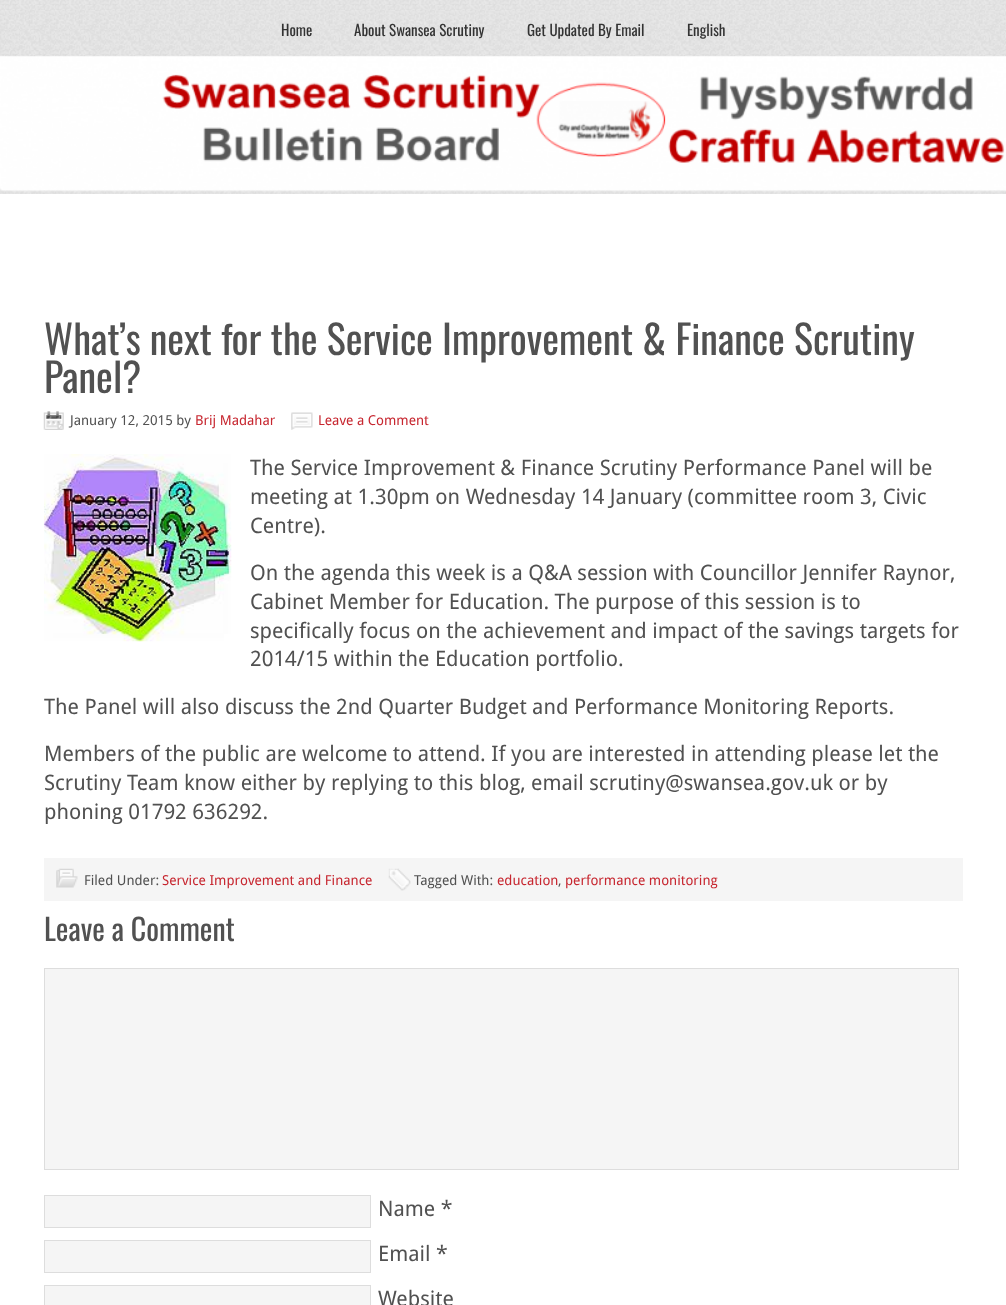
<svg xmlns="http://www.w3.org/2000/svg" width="1006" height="1305">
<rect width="100%" height="100%" fill="#fff"/>
<image x="0" y="0" width="1006" height="194" href="media/1.png"/>
<text x="281" y="36" style="font-family:Oswald;font-size:15px;fill:#333">Home</text>
<text x="354" y="36" style="font-family:Oswald;font-size:15px;fill:#333">About Swansea Scrutiny</text>
<text x="527" y="36" style="font-family:Oswald;font-size:15px;fill:#333">Get Updated By Email</text>
<text x="687" y="36" style="font-family:Oswald;font-size:15px;fill:#333">English</text>
<image x="0" y="56" width="1006" height="136" href="media/2.png"/>
<text x="44" y="355" style="font-family:Oswald;font-size:40px;fill:#515151">What’s next for the Service Improvement &amp; Finance Scrutiny</text>
<text x="44" y="393" style="font-family:Oswald;font-size:40px;fill:#515151">Panel?</text>
<image x="43" y="411" width="21" height="19" href="media/3.png"/>
<text x="70" y="425" style="font-family:Droid Sans;font-size:13.75px;fill:#515151">January 12, 2015 by</text>
<text x="195" y="425" style="font-family:Droid Sans;font-size:13.75px;fill:#c72730">Brij Madahar</text>
<image x="291" y="412" width="22" height="18" href="media/4.png"/>
<text x="318" y="425" style="font-family:Droid Sans;font-size:13.75px;fill:#c72730">Leave a Comment</text>
<image x="43" y="454" width="189" height="188" href="media/5.png"/>
<text x="250" y="475" style="font-family:Droid Sans;font-size:21.25px;fill:#515151">The Service Improvement &amp; Finance Scrutiny Performance Panel will be</text>
<text x="250" y="504" style="font-family:Droid Sans;font-size:21.25px;fill:#515151">meeting at 1.30pm on Wednesday 14 January (committee room 3, Civic</text>
<text x="250" y="533" style="font-family:Droid Sans;font-size:21.25px;fill:#515151">Centre).</text>
<text x="250" y="580" style="font-family:Droid Sans;font-size:21.25px;fill:#515151">On the agenda this week is a Q&amp;A session with Councillor Jennifer Raynor,</text>
<text x="250" y="609" style="font-family:Droid Sans;font-size:21.25px;fill:#515151">Cabinet Member for Education. The purpose of this session is to</text>
<text x="250" y="638" style="font-family:Droid Sans;font-size:21.25px;fill:#515151">specifically focus on the achievement and impact of the savings targets for</text>
<text x="250" y="666" style="font-family:Droid Sans;font-size:21.25px;fill:#515151">2014/15 within the Education portfolio.</text>
<text x="44" y="714" style="font-family:Droid Sans;font-size:21.25px;fill:#515151">The Panel will also discuss the 2nd Quarter Budget and Performance Monitoring Reports.</text>
<text x="44" y="761" style="font-family:Droid Sans;font-size:21.25px;fill:#515151">Members of the public are welcome to attend. If you are interested in attending please let the</text>
<text x="44" y="790" style="font-family:Droid Sans;font-size:21.25px;fill:#515151">Scrutiny Team know either by replying to this blog, email scrutiny@swansea.gov.uk or by</text>
<text x="44" y="819" style="font-family:Droid Sans;font-size:21.25px;fill:#515151">phoning 01792 636292.</text>
<rect x="44" y="858" width="919" height="43" fill="#f5f5f5"/>
<image x="56" y="868" width="22" height="20" href="media/6.png"/>
<text x="84" y="885" style="font-family:Droid Sans;font-size:13.75px;fill:#515151">Filed Under:</text>
<text x="162" y="885" style="font-family:Droid Sans;font-size:13.75px;fill:#c72730">Service Improvement and Finance</text>
<image x="388" y="868" width="23" height="23" href="media/7.png"/>
<text x="414" y="885" style="font-family:Droid Sans;font-size:13.75px;fill:#515151">Tagged With:</text>
<text x="497" y="885" style="font-family:Droid Sans;font-size:13.75px;fill:#c72730">education</text>
<text x="558" y="885" style="font-family:Droid Sans;font-size:13.75px;fill:#515151">,</text>
<text x="565" y="885" style="font-family:Droid Sans;font-size:13.75px;fill:#c72730">performance monitoring</text>
<text x="44" y="941" style="font-family:Oswald;font-size:30px;fill:#515151">Leave a Comment</text>
<rect x="44.5" y="968.5" width="914" height="201" fill="#f5f5f5" stroke="#ddd"/>
<rect x="44.5" y="1195.5" width="326" height="32" fill="#f5f5f5" stroke="#ddd"/>
<text x="378" y="1216" style="font-family:Droid Sans;font-size:21.25px;fill:#515151">Name *</text>
<rect x="44.5" y="1240.5" width="326" height="32" fill="#f5f5f5" stroke="#ddd"/>
<text x="378" y="1261" style="font-family:Droid Sans;font-size:21.25px;fill:#515151">Email *</text>
<rect x="44.5" y="1285.5" width="326" height="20" fill="#f5f5f5" stroke="#ddd"/>
<text x="378" y="1306" style="font-family:Droid Sans;font-size:21.25px;fill:#515151">Website</text>
</svg>
